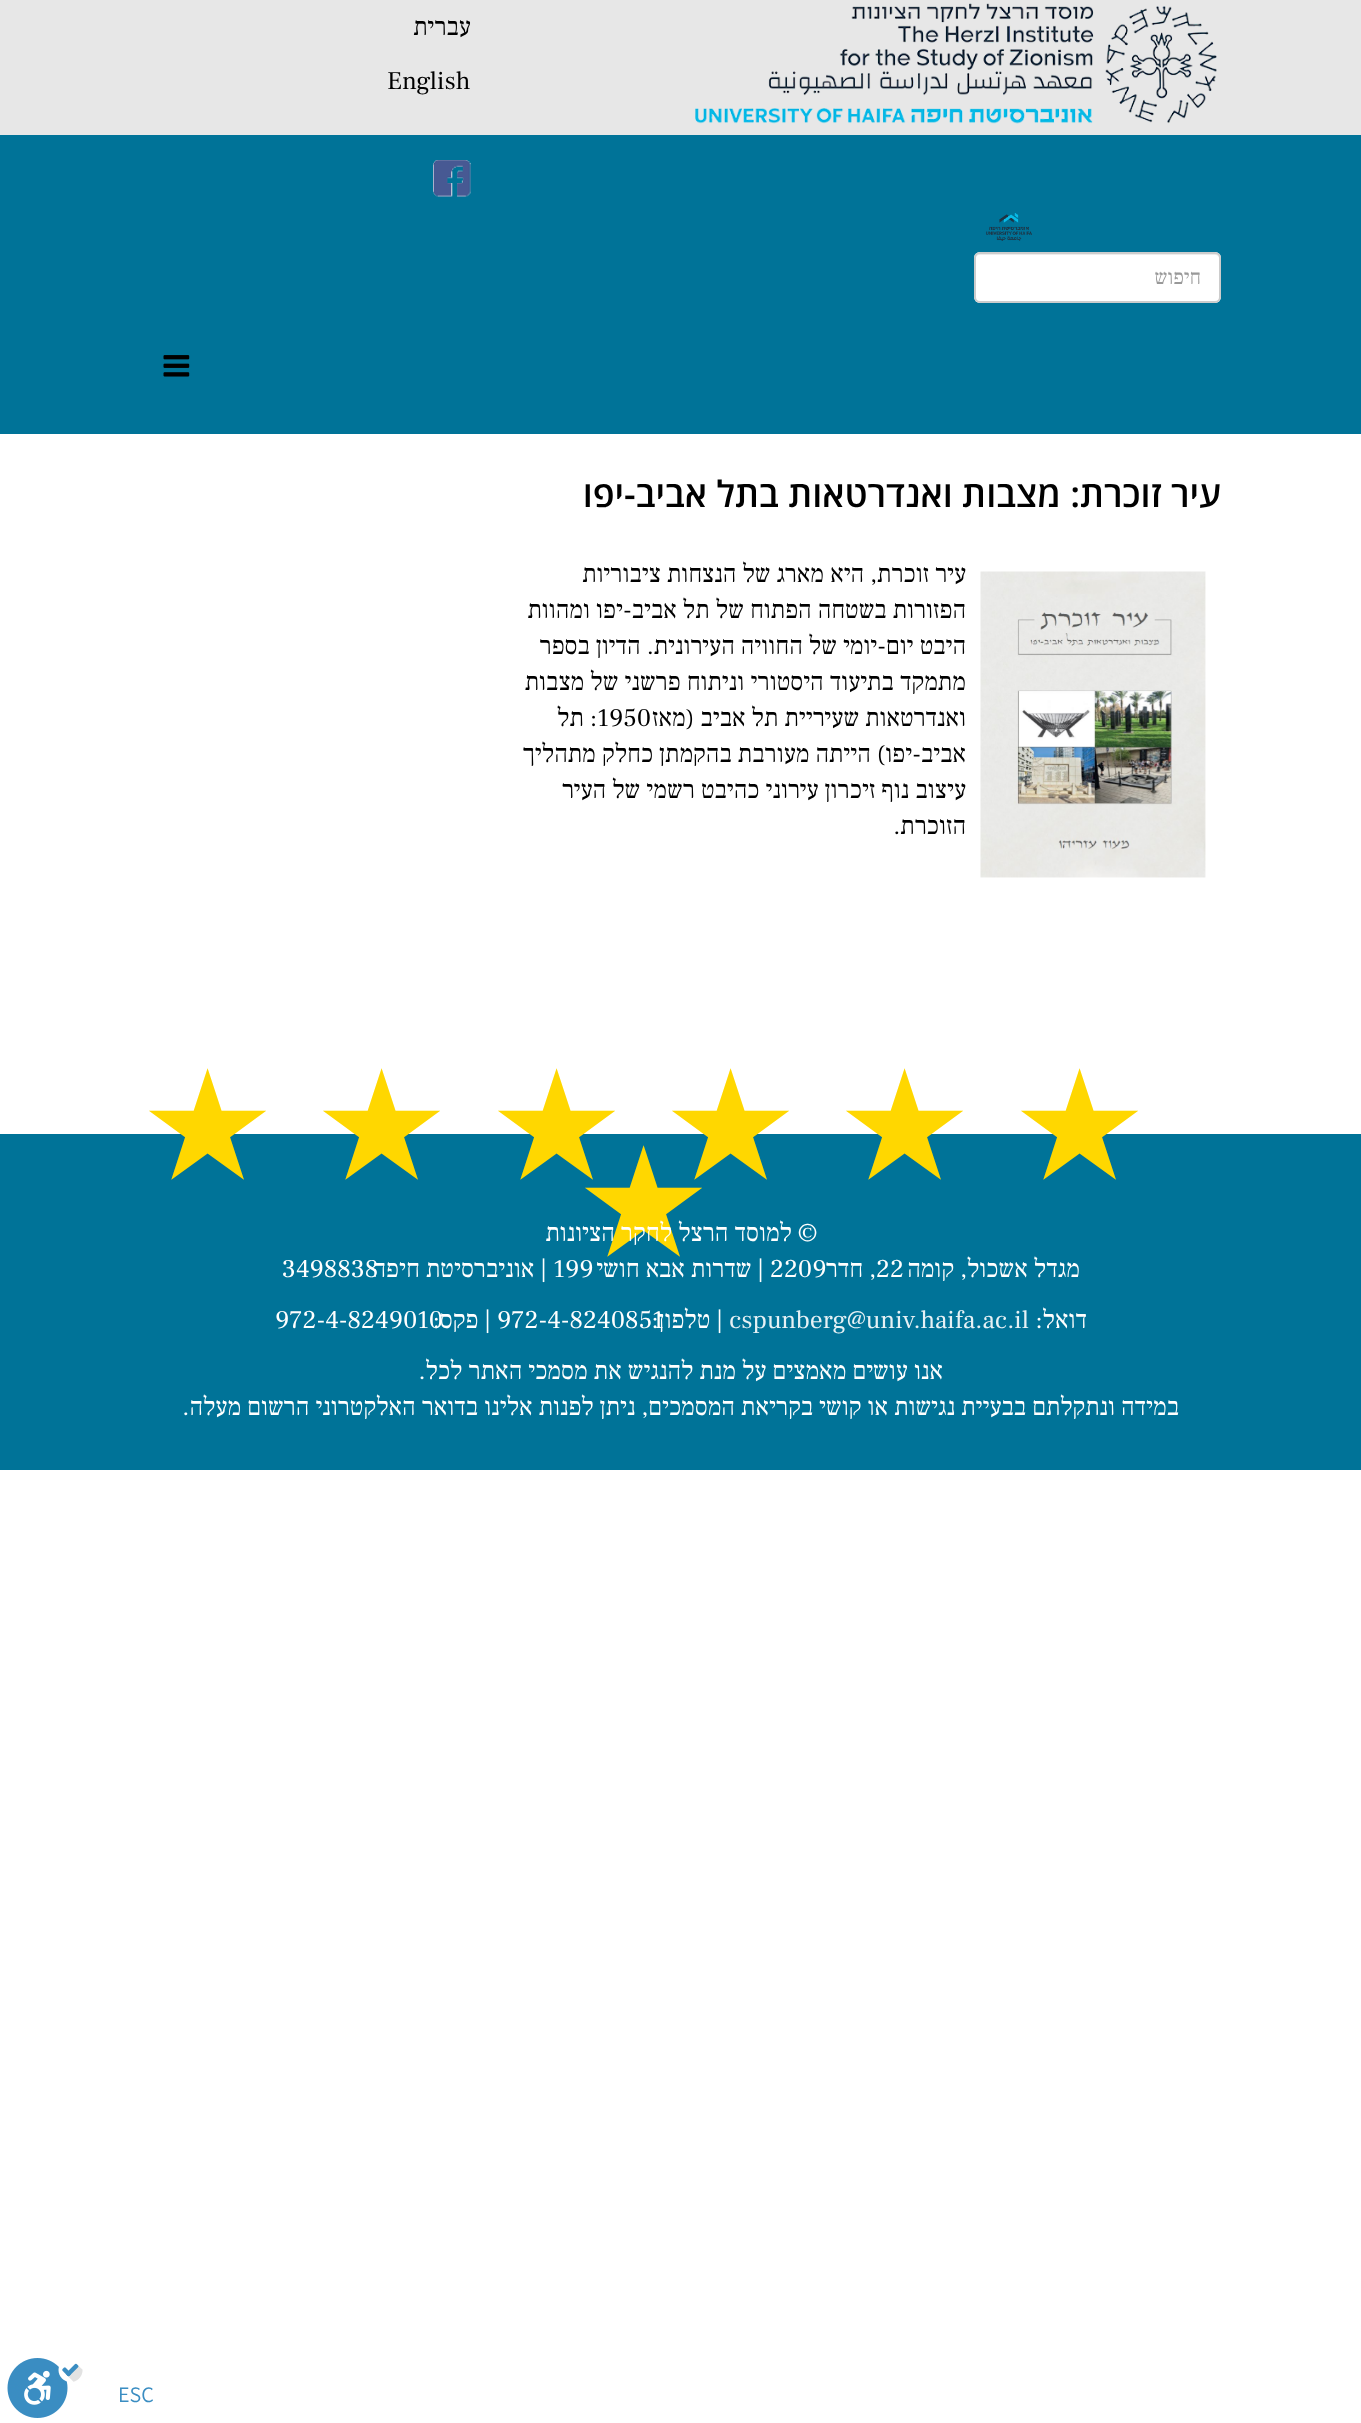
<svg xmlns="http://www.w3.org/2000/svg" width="1361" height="2423">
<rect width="100%" height="100%" fill="#fff"/>
<rect width="1361" height="135" fill="#e7e7e7"/>
<image x="695" y="3" width="522" height="121" href="media/1.png"/>
<text x="471" y="35" style="font-family:Frank Ruhl Libre;font-size:25.5px;direction:rtl;fill:#000">עברית</text>
<text x="387" y="89" style="font-family:Frank Ruhl Libre;font-size:25.5px;fill:#000">English</text>
<rect y="135" width="1361" height="299" fill="#007398"/>
<image x="433" y="160" width="38" height="37" href="media/2.png"/>
<image x="986" y="213" width="46" height="28" href="media/3.png"/>
<rect x="974" y="252" width="247" height="51" rx="6" fill="#fff"/>
<path d="M980 255h235c2 0 5 2 5 5v-1c0-3-2-5-5-5h-235c-3 0-5 2-5 5v1c0-3 2-5 5-5z" fill="#ececec"/>
<rect x="975" y="253" width="245" height="49" rx="5" fill="none" stroke="#ccc" stroke-width="2"/>
<text x="1201" y="284" style="font-family:Frank Ruhl Libre;font-size:21px;direction:rtl;fill:#999">חיפוש</text>
<image x="163" y="355" width="27" height="22" href="media/4.png"/>
<text x="1221" y="507" style="font-family:Open Sans;font-size:36px;font-weight:600;direction:rtl;fill:#000">עיר זוכרת: מצבות ואנדרטאות בתל אביב-יפו</text>
<image x="980" y="571" width="226" height="307" href="media/5.png"/>
<text x="966" y="582" style="font-family:Frank Ruhl Libre;font-size:25.5px;direction:rtl;fill:#000">עיר זוכרת, היא מארג של הנצחות ציבוריות</text>
<text x="966" y="618" style="font-family:Frank Ruhl Libre;font-size:25.5px;direction:rtl;fill:#000">הפזורות בשטחה הפתוח של תל אביב-יפו ומהוות</text>
<text x="966" y="654" style="font-family:Frank Ruhl Libre;font-size:25.5px;direction:rtl;fill:#000">היבט יום-יומי של החוויה העירונית. הדיון בספר</text>
<text x="966" y="690" style="font-family:Frank Ruhl Libre;font-size:25.5px;direction:rtl;fill:#000">מתמקד בתיעוד היסטורי וניתוח פרשני של מצבות</text>
<text x="966" y="726" style="font-family:Frank Ruhl Libre;font-size:25.5px;direction:rtl;fill:#000">ואנדרטאות שעיריית תל אביב (מאז</text>
<text x="597" y="726" style="font-family:Frank Ruhl Libre;font-size:25.5px;fill:#000">1950</text>
<text x="597" y="726" style="font-family:Frank Ruhl Libre;font-size:25.5px;direction:rtl;fill:#000">: תל</text>
<text x="966" y="762" style="font-family:Frank Ruhl Libre;font-size:25.5px;direction:rtl;fill:#000">אביב-יפו) הייתה מעורבת בהקמתן כחלק מתהליך</text>
<text x="966" y="798" style="font-family:Frank Ruhl Libre;font-size:25.5px;direction:rtl;fill:#000">עיצוב נוף זיכרון עירוני כהיבט רשמי של העיר</text>
<text x="966" y="834" style="font-family:Frank Ruhl Libre;font-size:25.5px;direction:rtl;fill:#000">הזוכרת.</text>
<rect y="1134" width="1361" height="336" fill="#007398"/>
<text x="1011" y="1179" style="font-family:DejaVu Sans;font-size:153px;fill:#ffd700">★</text>
<text x="836" y="1179" style="font-family:DejaVu Sans;font-size:153px;fill:#ffd700">★</text>
<text x="662" y="1179" style="font-family:DejaVu Sans;font-size:153px;fill:#ffd700">★</text>
<text x="488" y="1179" style="font-family:DejaVu Sans;font-size:153px;fill:#ffd700">★</text>
<text x="313" y="1179" style="font-family:DejaVu Sans;font-size:153px;fill:#ffd700">★</text>
<text x="139" y="1179" style="font-family:DejaVu Sans;font-size:153px;fill:#ffd700">★</text>
<text x="575" y="1256" style="font-family:DejaVu Sans;font-size:153px;fill:#ffd700">★</text>
<text x="817" y="1241" style="font-family:Frank Ruhl Libre;font-size:25.5px;direction:rtl;fill:#fff">© למוסד הרצל לחקר הציונות</text>
<text x="1080" y="1277" style="font-family:Frank Ruhl Libre;font-size:25.5px;direction:rtl;fill:#fff">מגדל אשכול, קומה</text>
<text x="876" y="1277" style="font-family:Frank Ruhl Libre;font-size:25.5px;fill:#fff">22</text>
<text x="876" y="1277" style="font-family:Frank Ruhl Libre;font-size:25.5px;direction:rtl;fill:#fff">, חדר</text>
<text x="770" y="1277" style="font-family:Frank Ruhl Libre;font-size:25.5px;fill:#fff">2209</text>
<text x="764" y="1277" style="font-family:Frank Ruhl Libre;font-size:25.5px;direction:rtl;fill:#fff">| שדרות אבא חושי</text>
<text x="553" y="1277" style="font-family:Frank Ruhl Libre;font-size:25.5px;fill:#fff">199</text>
<text x="282" y="1277" style="font-family:Frank Ruhl Libre;font-size:25.5px;fill:#fff">3498838</text>
<text x="547" y="1277" style="font-family:Frank Ruhl Libre;font-size:25.5px;direction:rtl;fill:#fff">| אוניברסיטת חיפה</text>
<text x="1087" y="1328" style="font-family:Frank Ruhl Libre;font-size:25.5px;direction:rtl;fill:#fff">דואל:</text>
<text x="729" y="1328" style="font-family:Frank Ruhl Libre;font-size:25.5px;fill:#e6f1f5">cspunberg@univ.haifa.ac.il</text>
<text x="497" y="1328" style="font-family:Frank Ruhl Libre;font-size:25.5px;fill:#fff">972-4-8240851</text>
<text x="723" y="1328" style="font-family:Frank Ruhl Libre;font-size:25.5px;direction:rtl;fill:#fff">| טלפון:</text>
<text x="275" y="1328" style="font-family:Frank Ruhl Libre;font-size:25.5px;fill:#fff">972-4-8249010</text>
<text x="491" y="1328" style="font-family:Frank Ruhl Libre;font-size:25.5px;direction:rtl;fill:#fff">| פקס:</text>
<text x="943" y="1379" style="font-family:Frank Ruhl Libre;font-size:25.5px;direction:rtl;fill:#fff">אנו עושים מאמצים על מנת להנגיש את מסמכי האתר לכל.</text>
<text x="1179" y="1415" style="font-family:Frank Ruhl Libre;font-size:25.5px;direction:rtl;fill:#fff">במידה ונתקלתם בבעיית נגישות או קושי בקריאת המסמכים, ניתן לפנות אלינו בדואר האלקטרוני הרשום מעלה.</text>
<text x="118" y="2402" style="font-family:Assistant;font-size:22px;fill:#3a8dc2">ESC</text>
<image x="7" y="2358" width="76" height="60" href="media/6.png"/>
</svg>
